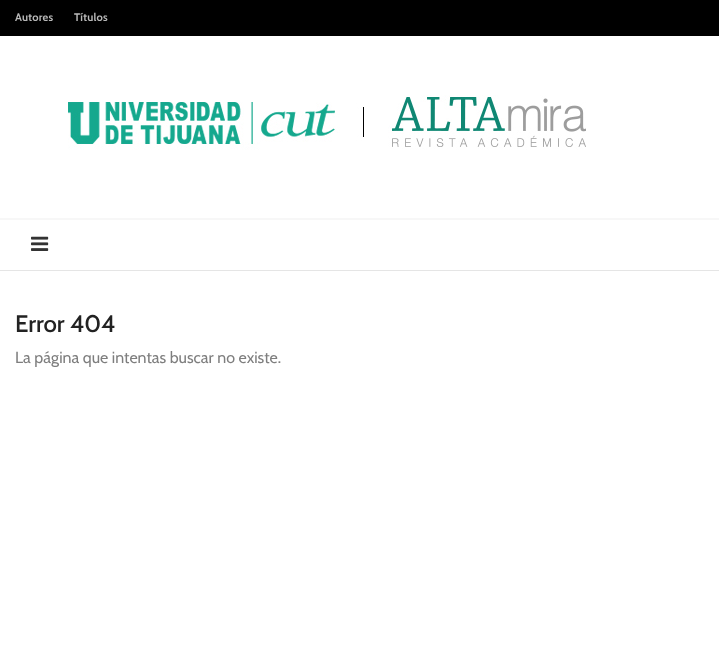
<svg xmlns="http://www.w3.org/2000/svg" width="719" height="665">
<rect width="100%" height="100%" fill="#fff"/>
<rect width="719" height="36" fill="#000"/>
<text x="15" y="21" style="font-family:Cabin;font-size:11px;font-weight:bold;letter-spacing:0.25px;fill:#b8b8b8">Autores</text>
<text x="74" y="21" style="font-family:Cabin;font-size:11px;font-weight:bold;letter-spacing:0.25px;fill:#b8b8b8">Títulos</text>
<rect y="218" width="719" height="2" fill="#f7f7f7"/>
<image x="68" y="95" width="518" height="55" href="media/1.png"/>
<rect y="270" width="719" height="1" fill="#e5e5e5"/>
<image x="31" y="236" width="18" height="15" href="media/2.png"/>
<text x="15" y="332" style="font-family:Cabin;font-size:24px;font-weight:500;fill:#222">Error 404</text>
<text x="15" y="363" style="font-family:Cabin;font-size:16px;fill:#7e7e7e">La página que intentas buscar no existe.</text>
</svg>
